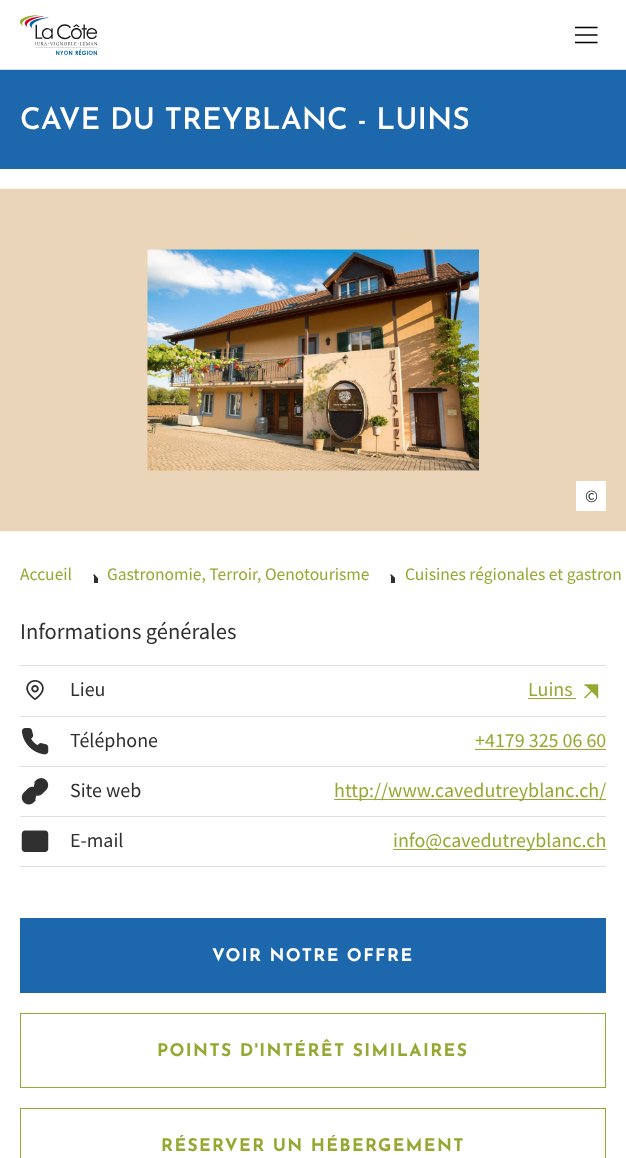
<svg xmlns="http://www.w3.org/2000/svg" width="626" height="1158">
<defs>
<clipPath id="clip1"><rect x="83" y="568" width="15" height="15"/></clipPath>
<clipPath id="clip2"><rect x="380" y="568" width="15" height="15"/></clipPath>
</defs>
<rect width="100%" height="100%" fill="#fff"/>
<rect y="69" width="626" height="1" fill="#dfdfdf"/>
<image x="20" y="15" width="77" height="40" href="media/1.png"/>
<image x="575" y="26" width="23" height="18" href="media/2.png"/>
<rect y="70" width="626" height="99" fill="#1d68ac"/>
<text x="20" y="129" style="font-family:Josefin Sans;font-size:30px;font-weight:100;fill:#fff">CAVE DU TREYBLANC - LUINS</text>
<image x="0" y="188" width="626" height="344" href="media/3.png"/>
<rect x="576" y="481" width="30" height="30" fill="#fff"/>
<text x="585" y="502" style="font-family:Source Sans Pro;font-size:17.5px;fill:#303030">©</text>
<text x="20" y="580" style="font-family:Source Sans Pro;font-size:17.5px;fill:#96a832">Accueil</text>
<g clip-path="url(#clip1)">
<path d="M94 590l7-7.5l-7-7.5" fill="#303030" stroke="#303030" stroke-width="1.5" stroke-linecap="round" stroke-linejoin="round"/>
</g>
<text x="107" y="580" style="font-family:Source Sans Pro;font-size:17.5px;fill:#96a832">Gastronomie, Terroir, Oenotourisme</text>
<g clip-path="url(#clip2)">
<path d="M391 590l8-7.5l-8-7.5" fill="#303030" stroke="#303030" stroke-width="1.5" stroke-linecap="round" stroke-linejoin="round"/>
</g>
<text x="405" y="580" style="font-family:Source Sans Pro;font-size:17.5px;fill:#96a832">Cuisines régionales et gastron</text>
<text x="20" y="639" style="font-family:Source Sans Pro;font-size:22.5px;fill:#303030">Informations générales</text>
<rect x="20" y="665" width="586" height="1" fill="#dfdfdf"/>
<image x="26" y="680" width="18" height="20" href="media/4.png"/>
<text x="70" y="696" style="font-family:Source Sans Pro;font-size:20px;fill:#303030">Lieu</text>
<text x="528" y="696" style="font-family:Source Sans Pro;font-size:20px;fill:#96a832">Luins</text>
<rect x="528" y="698" width="48" height="1" fill="#96a832"/>
<image x="584" y="684" width="15" height="15" href="media/5.png"/>
<rect x="20" y="716" width="586" height="1" fill="#dfdfdf"/>
<image x="21" y="728" width="28" height="27" href="media/6.png"/>
<text x="70" y="747" style="font-family:Source Sans Pro;font-size:20px;fill:#303030">Téléphone</text>
<text x="475" y="747" style="font-family:Source Sans Pro;font-size:20px;fill:#96a832">+4179 325 06 60</text>
<rect x="475" y="749" width="131" height="1" fill="#96a832"/>
<rect x="20" y="766" width="586" height="1" fill="#dfdfdf"/>
<image x="21" y="778" width="28" height="27" href="media/7.png"/>
<text x="70" y="797" style="font-family:Source Sans Pro;font-size:20px;fill:#303030">Site web</text>
<rect x="334" y="799" width="272" height="1" fill="#96a832"/>
<text x="334" y="797" style="font-family:Source Sans Pro;font-size:20px;fill:#96a832">http://www.cavedutreyblanc.ch/</text>
<rect x="20" y="816" width="586" height="1" fill="#dfdfdf"/>
<rect x="20" y="866" width="586" height="1" fill="#dfdfdf"/>
<image x="21" y="830" width="28" height="22" href="media/8.png"/>
<text x="70" y="847" style="font-family:Source Sans Pro;font-size:20px;fill:#303030">E-mail</text>
<rect x="393" y="849" width="213" height="1" fill="#96a832"/>
<text x="393" y="847" style="font-family:Source Sans Pro;font-size:20px;fill:#96a832">info@cavedutreyblanc.ch</text>
<rect x="20" y="918" width="586" height="75" fill="#1d68ac"/>
<text x="212" y="961" style="font-family:'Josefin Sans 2';font-size:17.5px;font-weight:100;letter-spacing:1.4px;fill:#fff">VOIR NOTRE OFFRE</text>
<rect x="20.5" y="1013.5" width="585" height="74" fill="none" stroke="#96a832"/>
<text x="157" y="1056" style="font-family:'Josefin Sans 2';font-size:17.5px;font-weight:100;letter-spacing:1.4px;fill:#96a832">POINTS D'INTÉRÊT SIMILAIRES</text>
<rect x="20.5" y="1108.5" width="585" height="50" fill="none" stroke="#96a832"/>
<text x="161" y="1151" style="font-family:'Josefin Sans 2';font-size:17.5px;font-weight:100;letter-spacing:1.4px;fill:#96a832">RÉSERVER UN HÉBERGEMENT</text>
</svg>
